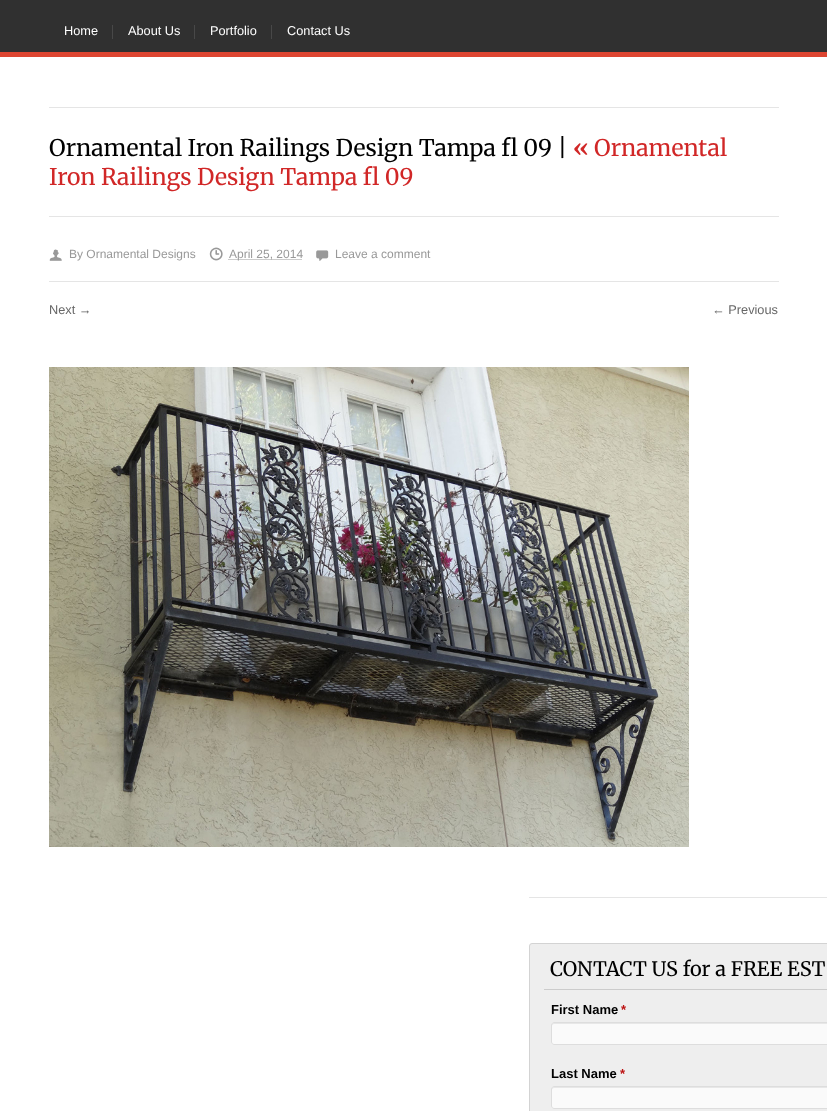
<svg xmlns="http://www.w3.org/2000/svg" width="827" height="1111">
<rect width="100%" height="100%" fill="#fff"/>
<rect width="827" height="52" fill="#303030"/>
<rect y="52" width="827" height="5" fill="#dd4531"/>
<rect x="112" y="25" width="1" height="14" fill="#484848"/>
<text x="64" y="35" style="font-family:Liberation Sans;font-size:12.75px;fill:#fff">Home</text>
<rect x="194" y="25" width="1" height="14" fill="#484848"/>
<text x="128" y="35" style="font-family:Liberation Sans;font-size:12.75px;fill:#fff">About Us</text>
<rect x="271" y="25" width="1" height="14" fill="#484848"/>
<text x="210" y="35" style="font-family:Liberation Sans;font-size:12.75px;fill:#fff">Portfolio</text>
<text x="287" y="35" style="font-family:Liberation Sans;font-size:12.75px;fill:#fff">Contact Us</text>
<rect x="49" y="107" width="730" height="1" fill="#e5e5e5"/>
<rect x="49" y="216" width="730" height="1" fill="#e5e5e5"/>
<text x="49" y="156" style="font-family:Merriweather;font-size:23px;fill:#000">Ornamental Iron Railings Design Tampa fl 09 |</text>
<text x="573" y="156" style="font-family:Merriweather;font-size:23px;font-weight:bold;fill:#d12727">«</text>
<text x="594" y="156" style="font-family:Merriweather;font-size:23px;fill:#d12727">Ornamental</text>
<text x="49" y="185" style="font-family:Merriweather;font-size:23px;fill:#d12727">Iron Railings Design Tampa fl 09</text>
<image x="49" y="249" width="13" height="12" href="media/1.png"/>
<text x="69" y="258" style="font-family:Liberation Sans;font-size:12px;fill:#999">By Ornamental Designs</text>
<image x="209" y="247" width="14" height="14" href="media/2.png"/>
<path d="M228.5 259.5h74" fill="none" stroke="#999" stroke-dasharray="1 1"/>
<text x="229" y="258" style="font-family:Liberation Sans;font-size:12px;fill:#999">April 25, 2014</text>
<image x="316" y="250" width="13" height="11" href="media/3.png"/>
<text x="335" y="258" style="font-family:Liberation Sans;font-size:12px;fill:#999">Leave a comment</text>
<rect x="49" y="281" width="730" height="1" fill="#e5e5e5"/>
<text x="49" y="314" style="font-family:Liberation Sans;font-size:12.75px;fill:#666">Next →</text>
<text x="712" y="314" style="font-family:Liberation Sans;font-size:12.75px;fill:#666">← Previous</text>
<image x="49" y="367" width="640" height="480" href="media/4.png"/>
<rect x="529" y="897" width="298" height="1" fill="#e5e5e5"/>
<rect x="529.5" y="943.5" width="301" height="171" rx="2.5" fill="#eee" stroke="#d3d3d3"/>
<rect x="544" y="989" width="283" height="1" fill="#ccc"/>
<text x="550" y="976" style="font-family:Merriweather;font-size:20px;fill:#000">CONTACT US for a FREE EST</text>
<text x="551" y="1014" style="font-family:Liberation Sans;font-size:13px;font-weight:bold;fill:#000">First Name</text>
<text x="621" y="1014" style="font-family:Liberation Sans;font-size:13px;font-weight:bold;fill:#bc1212">*</text>
<rect x="551" y="1022" width="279" height="23" rx="3" fill="#fafafa"/>
<path d="M554 1024h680c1 0 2 1 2 2c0-1 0-3-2-3h-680c-2 0-2 2-2 3c0-1 1-2 2-2z" fill="#e7e7e7"/>
<rect x="551.5" y="1022.5" width="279" height="22" rx="2.5" fill="none" stroke="#ddd"/>
<text x="551" y="1078" style="font-family:Liberation Sans;font-size:13px;font-weight:bold;fill:#000">Last Name</text>
<text x="620" y="1078" style="font-family:Liberation Sans;font-size:13px;font-weight:bold;fill:#bc1212">*</text>
<rect x="551" y="1086" width="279" height="23" rx="3" fill="#fafafa"/>
<path d="M554 1088h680c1 0 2 1 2 2c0-1 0-3-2-3h-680c-2 0-2 2-2 3c0-1 1-2 2-2z" fill="#e7e7e7"/>
<rect x="551.5" y="1086.5" width="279" height="22" rx="2.5" fill="none" stroke="#ddd"/>
</svg>
